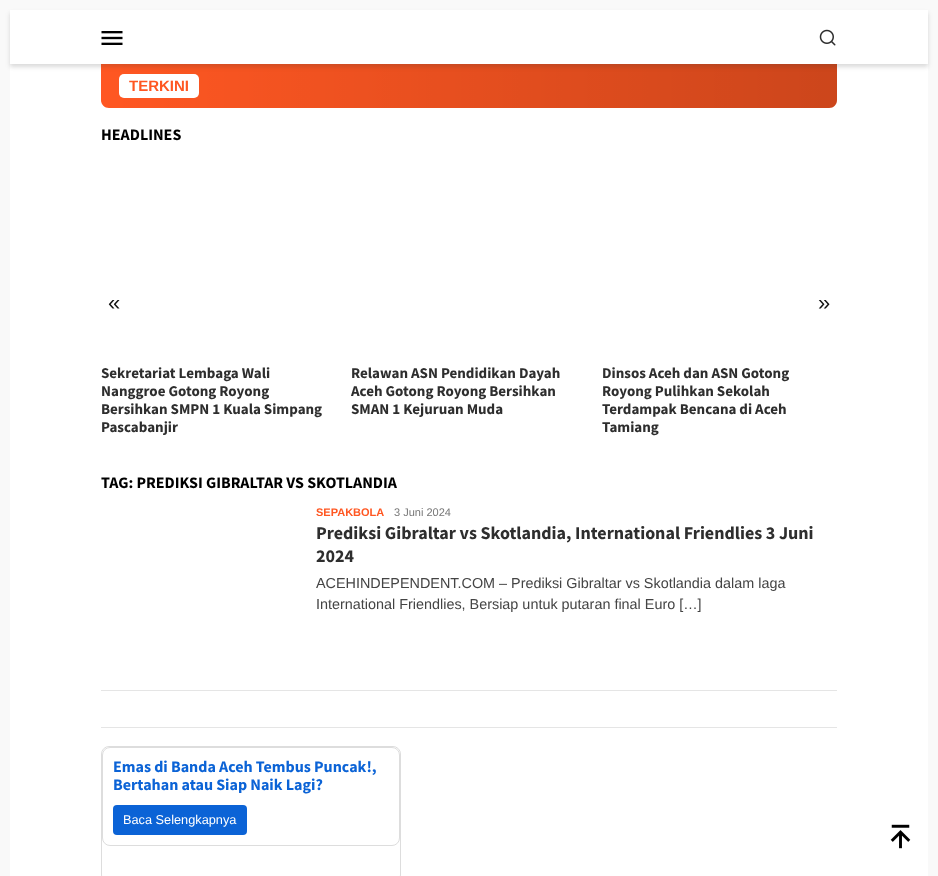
<svg xmlns="http://www.w3.org/2000/svg" width="938" height="876">
<defs>
<linearGradient id="g1" gradientUnits="userSpaceOnUse" x1="101" y1="86" x2="837" y2="86"><stop offset="0" stop-color="#000" stop-opacity="0"/><stop offset="1" stop-color="#000" stop-opacity="0.2"/></linearGradient>
<clipPath id="clip1"><rect x="102" y="747" width="298" height="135" rx="7"/></clipPath>
</defs>
<rect width="100%" height="100%" fill="#f9f9f9"/>
<rect x="10" y="64" width="918" height="812" fill="#fff"/>
<path d="M101 64h736v36c0 4.5-3.5 8-8 8h-720c-4.5 0-8-3.5-8-8z" fill="#ff5722"/>
<path d="M101 64h736v36c0 4.5-3.5 8-8 8h-720c-4.5 0-8-3.5-8-8z" fill="url(#g1)"/>
<rect x="10" y="13" width="918" height="54" fill="#3434342e" filter="blur(2px)"/>
<rect x="10" y="10" width="918" height="54" fill="#fff"/>
<image x="101" y="31" width="22" height="14" href="media/1.png"/>
<image x="819" y="29" width="17" height="17" href="media/2.png"/>
<rect x="119" y="74" width="80" height="24" rx="5" fill="#fff"/>
<text x="129" y="91" style="font-family:Liberation Sans;font-size:15px;font-weight:bold;fill:#ff5722">TERKINI</text>
<text x="101" y="140" style="font-family:Source Sans Pro;font-size:16px;font-weight:bold;fill:#000">HEADLINES</text>
<text x="108" y="310" style="font-family:Liberation Sans;font-size:22px;fill:#111">«</text>
<text x="818" y="310" style="font-family:Liberation Sans;font-size:22px;fill:#111">»</text>
<text x="101" y="378" style="font-family:Source Sans Pro;font-size:15px;font-weight:bold;fill:#2e2e2e">Sekretariat Lembaga Wali</text>
<text x="101" y="396" style="font-family:Source Sans Pro;font-size:15px;font-weight:bold;fill:#2e2e2e">Nanggroe Gotong Royong</text>
<text x="101" y="414" style="font-family:Source Sans Pro;font-size:15px;font-weight:bold;fill:#2e2e2e">Bersihkan SMPN 1 Kuala Simpang</text>
<text x="101" y="432" style="font-family:Source Sans Pro;font-size:15px;font-weight:bold;fill:#2e2e2e">Pascabanjir</text>
<text x="351" y="378" style="font-family:Source Sans Pro;font-size:15px;font-weight:bold;fill:#2e2e2e">Relawan ASN Pendidikan Dayah</text>
<text x="351" y="396" style="font-family:Source Sans Pro;font-size:15px;font-weight:bold;fill:#2e2e2e">Aceh Gotong Royong Bersihkan</text>
<text x="351" y="414" style="font-family:Source Sans Pro;font-size:15px;font-weight:bold;fill:#2e2e2e">SMAN 1 Kejuruan Muda</text>
<text x="602" y="378" style="font-family:Source Sans Pro;font-size:15px;font-weight:bold;fill:#2e2e2e">Dinsos Aceh dan ASN Gotong</text>
<text x="602" y="396" style="font-family:Source Sans Pro;font-size:15px;font-weight:bold;fill:#2e2e2e">Royong Pulihkan Sekolah</text>
<text x="602" y="414" style="font-family:Source Sans Pro;font-size:15px;font-weight:bold;fill:#2e2e2e">Terdampak Bencana di Aceh</text>
<text x="602" y="432" style="font-family:Source Sans Pro;font-size:15px;font-weight:bold;fill:#2e2e2e">Tamiang</text>
<text x="101" y="488" style="font-family:Source Sans Pro;font-size:16px;font-weight:bold;fill:#000">TAG: PREDIKSI GIBRALTAR VS SKOTLANDIA</text>
<rect x="101" y="690" width="736" height="1" fill="#e5e5e5"/>
<text x="316" y="516" style="font-family:Liberation Sans;font-size:11px;font-weight:bold;fill:#ff5722">SEPAKBOLA</text>
<text x="394" y="516" style="font-family:Liberation Sans;font-size:11px;fill:#787878">3 Juni 2024</text>
<text x="316" y="539" style="font-family:Source Sans Pro;font-size:18px;font-weight:bold;fill:#2e2e2e">Prediksi Gibraltar vs Skotlandia, International Friendlies 3 Juni</text>
<text x="316" y="562" style="font-family:Source Sans Pro;font-size:18px;font-weight:bold;fill:#2e2e2e">2024</text>
<text x="316" y="588" style="font-family:Liberation Sans;font-size:14.4px;fill:#444">ACEHINDEPENDENT.COM – Prediksi Gibraltar vs Skotlandia dalam laga</text>
<text x="316" y="609" style="font-family:Liberation Sans;font-size:14.4px;fill:#444">International Friendlies, Bersiap untuk putaran final Euro […]</text>
<rect x="101" y="727" width="736" height="1" fill="#e5e5e5"/>
<rect x="101.5" y="746.5" width="299" height="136" rx="7.5" fill="none" stroke="#ddd"/>
<g clip-path="url(#clip1)">
<rect x="102" y="747" width="298" height="99" rx="8" fill="#fff"/>
</g>
<rect x="102.5" y="747.5" width="297" height="98" rx="7.5" fill="none" stroke="#ddd"/>
<text x="113" y="772" style="font-family:Source Sans Pro;font-size:16px;font-weight:bold;fill:#0b63d6">Emas di Banda Aceh Tembus Puncak!,</text>
<text x="113" y="790" style="font-family:Source Sans Pro;font-size:16px;font-weight:bold;fill:#0b63d6">Bertahan atau Siap Naik Lagi?</text>
<rect x="113" y="805" width="134" height="30" rx="4" fill="#0b63d6"/>
<text x="123" y="824" style="font-family:Liberation Sans;font-size:12.75px;fill:#fff">Baca Selengkapnya</text>
<image x="890" y="824" width="21" height="25" href="media/3.png"/>
</svg>
